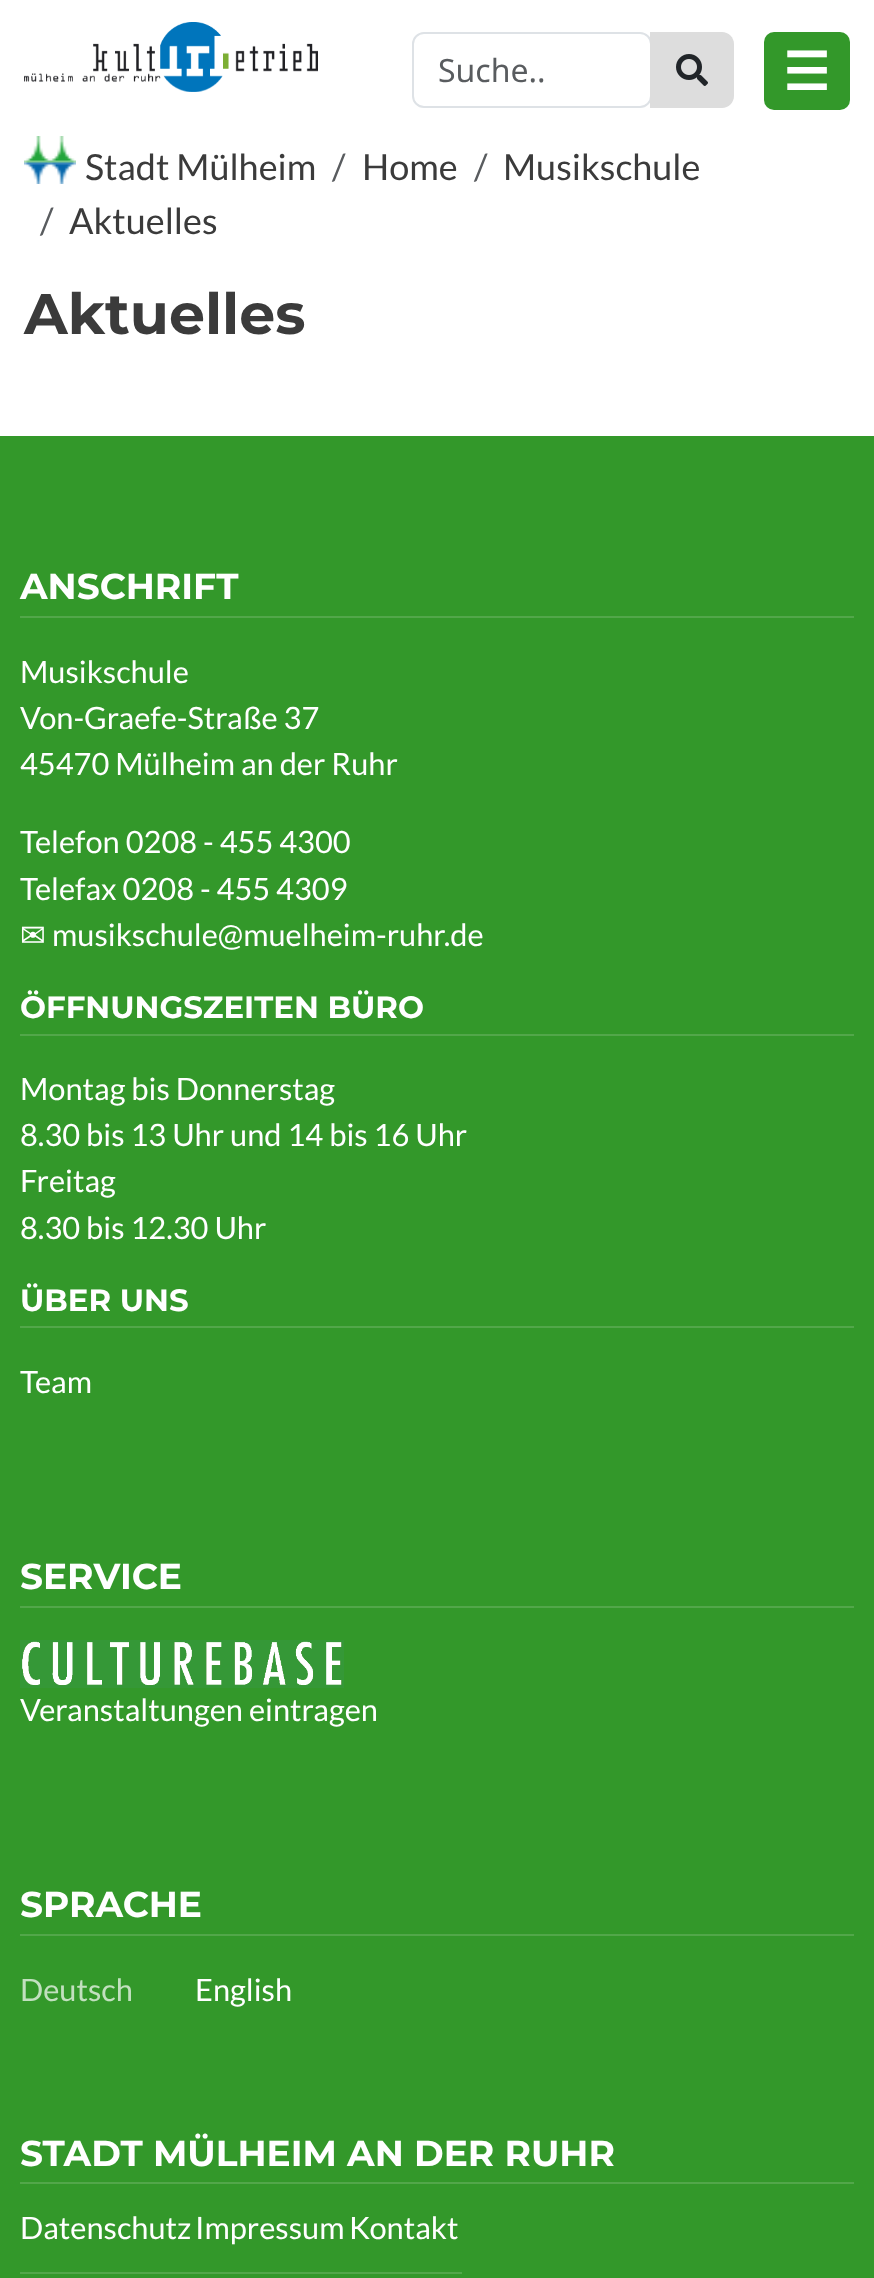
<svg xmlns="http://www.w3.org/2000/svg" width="874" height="2278">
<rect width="100%" height="100%" fill="#fff"/>
<image x="24" y="22" width="294" height="70" href="media/1.png"/>
<rect x="413" y="33" width="238" height="74" rx="11" fill="none" stroke="#dee2e6" stroke-width="2"/>
<text x="438" y="82" style="font-family:Noto Sans;font-size:32px;fill:#595c5f">Suche..</text>
<path d="M650 32h72c6.5 0 12 5.5 12 12v52c0 6.5-5.5 12-12 12h-72z" fill="#ddd"/>
<image x="676" y="54" width="32" height="32" href="media/2.png"/>
<rect x="764" y="32" width="86" height="78" rx="10" fill="#33982a"/>
<text x="783" y="90" style="font-family:DejaVu Sans;font-size:52px;font-weight:bold;fill:#fff">☰</text>
<image x="24" y="136" width="52" height="48" href="media/3.png"/>
<text x="85" y="180" style="font-family:Lato;font-size:36px;fill:#3b3b3b">Stadt Mülheim</text>
<text x="332" y="180" style="font-family:Lato;font-size:36px;fill:#595c5f">/</text>
<text x="362" y="180" style="font-family:Lato;font-size:36px;fill:#3b3b3b">Home</text>
<text x="474" y="180" style="font-family:Lato;font-size:36px;fill:#595c5f">/</text>
<text x="503" y="180" style="font-family:Lato;font-size:36px;fill:#3b3b3b">Musikschule</text>
<text x="40" y="234" style="font-family:Lato;font-size:36px;fill:#595c5f">/</text>
<text x="69" y="234" style="font-family:Lato;font-size:36px;fill:#3b3b3b">Aktuelles</text>
<text x="24" y="334" style="font-family:Montserrat;font-size:57px;font-weight:bold;fill:#3b3b3b">Aktuelles</text>
<rect y="436" width="874" height="1842" fill="#33982a"/>
<rect x="20" y="616" width="834" height="2" fill="#52a74a"/>
<text x="20" y="599" style="font-family:Montserrat;font-size:36px;font-weight:bold;fill:#fff">ANSCHRIFT</text>
<text x="20" y="683" style="font-family:Lato;font-size:30.8px;fill:#fff">Musikschule</text>
<text x="20" y="729" style="font-family:Lato;font-size:30.8px;fill:#fff">Von-Graefe-Straße 37</text>
<text x="20" y="775" style="font-family:Lato;font-size:30.8px;fill:#fff">45470 Mülheim an der Ruhr</text>
<text x="20" y="853" style="font-family:Lato;font-size:30.8px;fill:#fff">Telefon 0208 - 455 4300</text>
<text x="20" y="900" style="font-family:Lato;font-size:30.8px;fill:#fff">Telefax 0208 - 455 4309</text>
<text x="20" y="946" style="font-family:DejaVu Sans;font-size:30.8px;fill:#fff">✉</text>
<text x="52" y="946" style="font-family:Lato;font-size:30.8px;fill:#fff">musikschule@muelheim-ruhr.de</text>
<rect x="20" y="1034" width="834" height="2" fill="#52a74a"/>
<text x="20" y="1018" style="font-family:Montserrat;font-size:30.8px;font-weight:bold;fill:#fff">ÖFFNUNGSZEITEN BÜRO</text>
<text x="20" y="1100" style="font-family:Lato;font-size:30.8px;fill:#fff">Montag bis Donnerstag</text>
<text x="20" y="1146" style="font-family:Lato;font-size:30.8px;fill:#fff">8.30 bis 13 Uhr und 14 bis 16 Uhr</text>
<text x="20" y="1192" style="font-family:Lato;font-size:30.8px;fill:#fff">Freitag</text>
<text x="20" y="1239" style="font-family:Lato;font-size:30.8px;fill:#fff">8.30 bis 12.30 Uhr</text>
<rect x="20" y="1326" width="834" height="2" fill="#52a74a"/>
<text x="20" y="1311" style="font-family:Montserrat;font-size:30.8px;font-weight:bold;fill:#fff">ÜBER UNS</text>
<text x="20" y="1393" style="font-family:Lato;font-size:30.8px;fill:#fff">Team</text>
<rect x="20" y="1606" width="834" height="2" fill="#52a74a"/>
<text x="20" y="1589" style="font-family:Montserrat;font-size:36px;font-weight:bold;fill:#fff">SERVICE</text>
<image x="20" y="1640" width="324" height="48" href="media/4.png"/>
<text x="20" y="1721" style="font-family:Lato;font-size:30.8px;fill:#fff">Veranstaltungen eintragen</text>
<rect x="20" y="1934" width="834" height="2" fill="#52a74a"/>
<text x="20" y="1917" style="font-family:Montserrat;font-size:36px;font-weight:bold;fill:#fff">SPRACHE</text>
<text x="20" y="2001" style="font-family:Lato;font-size:30.8px;fill:#c2e0bf">Deutsch</text>
<text x="195" y="2001" style="font-family:Lato;font-size:30.8px;fill:#fff">English</text>
<rect x="20" y="2182" width="834" height="2" fill="#52a74a"/>
<text x="20" y="2166" style="font-family:Montserrat;font-size:36px;font-weight:bold;fill:#fff">STADT MÜLHEIM AN DER RUHR</text>
<rect x="20" y="2272" width="442" height="2" fill="#52a74a"/>
<text x="20" y="2239" style="font-family:Lato;font-size:30.8px;fill:#fff">Datenschutz</text>
<text x="195" y="2239" style="font-family:Lato;font-size:30.8px;fill:#fff">Impressum</text>
<text x="349" y="2239" style="font-family:Lato;font-size:30.8px;fill:#fff">Kontakt</text>
</svg>
